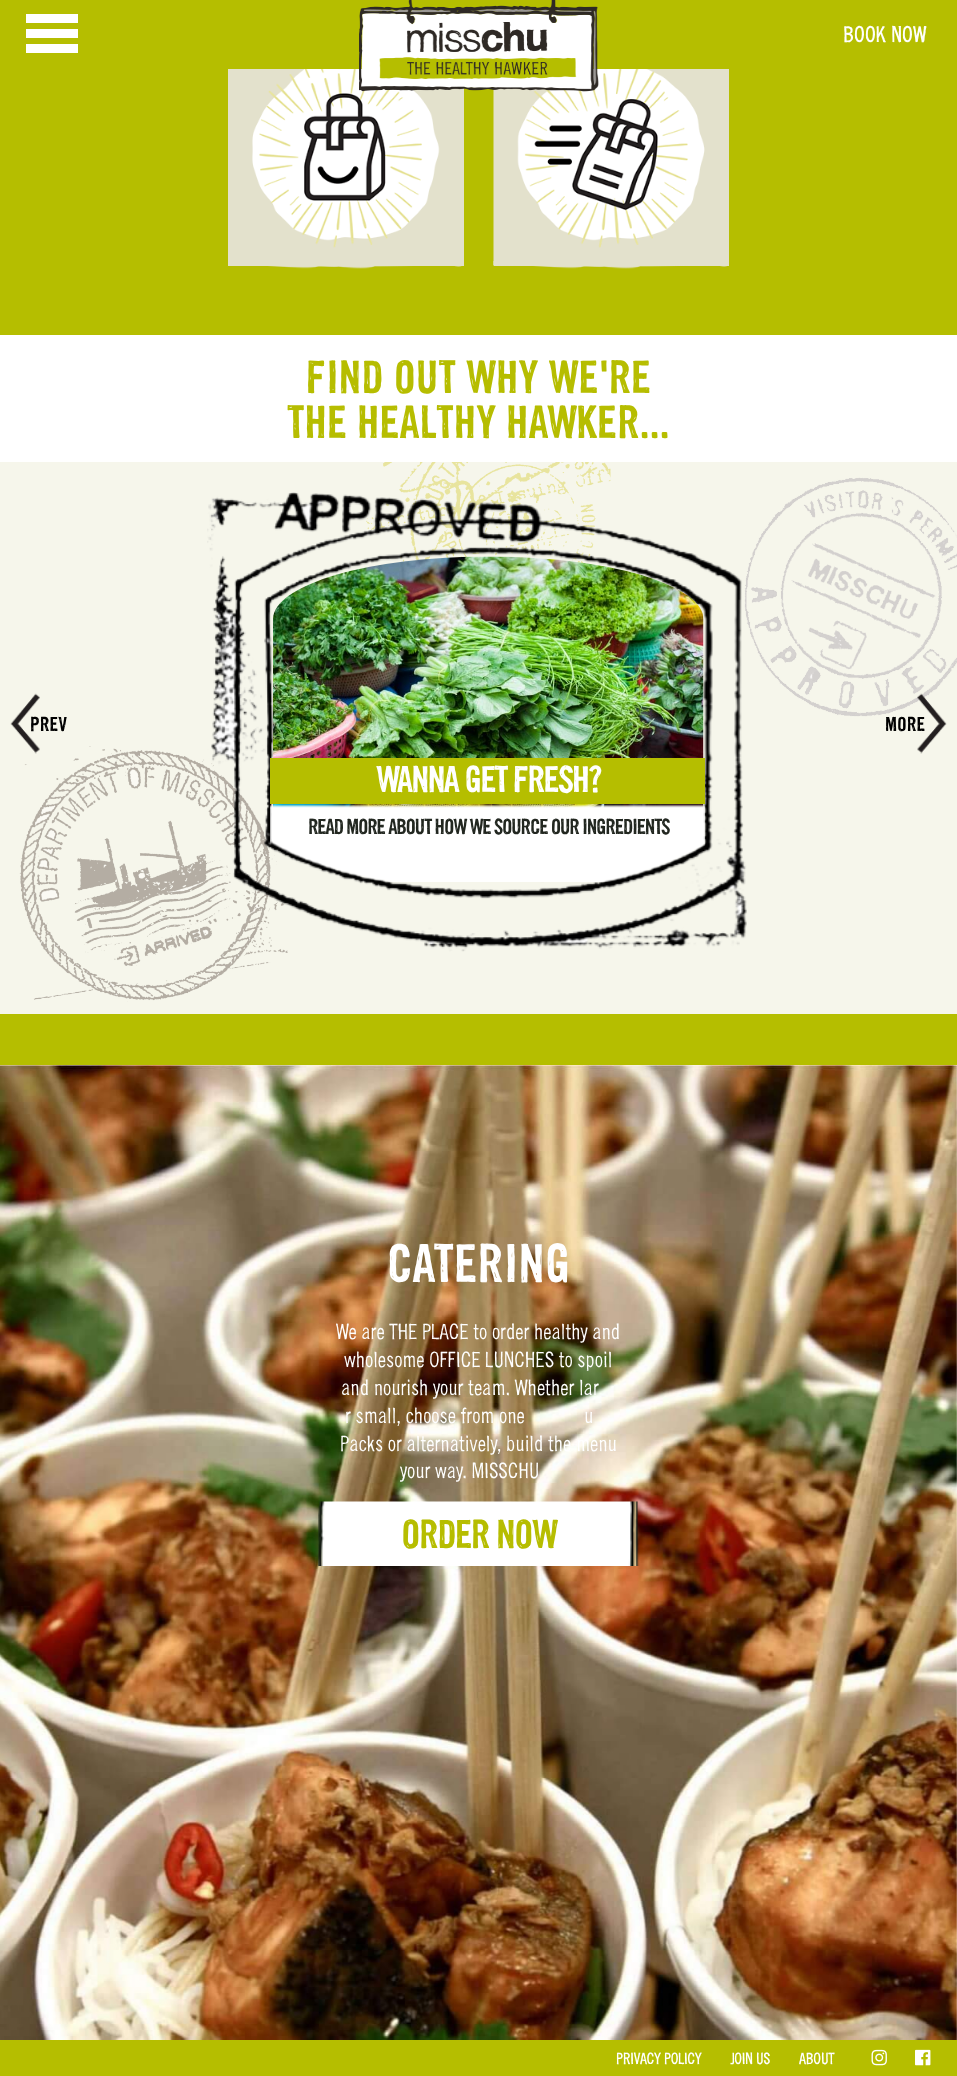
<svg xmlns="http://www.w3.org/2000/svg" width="957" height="2076">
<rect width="100%" height="100%" fill="#fff"/>
<rect width="957" height="335" fill="#b5be00"/>
<rect x="26" y="14" width="52" height="9" fill="#fff"/>
<rect x="26" y="29" width="52" height="9" fill="#fff"/>
<rect x="26" y="44" width="52" height="9" fill="#fff"/>
<rect x="228" y="69" width="236" height="197" fill="#e3e1cc"/>
<image x="252" y="69" width="188" height="179" href="media/2.png"/>
<rect x="494" y="69" width="235" height="197" fill="#e3e1cc"/>
<image x="493" y="87" width="1" height="179" href="media/4.png"/>
<image x="517" y="69" width="188" height="179" href="media/5.png"/>
<image x="359" y="0" width="240" height="92" href="media/1.png"/>
<text x="843" y="42" style="font-family:'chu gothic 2';font-size:21px;font-weight:bold;letter-spacing:0.5px;fill:#fff">BOOK NOW</text>
<image x="268" y="266" width="194" height="3" href="media/3.png"/>
<image x="493" y="261" width="234" height="8" href="media/6.png"/>
<text x="306" y="393" style="font-family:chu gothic;font-size:45px;font-weight:bold;fill:#b6bd00">FIND OUT WHY WE'RE</text>
<text x="287" y="438" style="font-family:chu gothic;font-size:45px;font-weight:bold;fill:#b6bd00">THE HEALTHY HAWKER...</text>
<rect y="462" width="957" height="552" fill="#f6f6eb"/>
<rect y="1014" width="957" height="51" fill="#b5be00"/>
<image x="366" y="462" width="245" height="102" href="media/7.png"/>
<image x="744" y="477" width="213" height="240" href="media/8.png"/>
<image x="19" y="746" width="269" height="256" href="media/11.png"/>
<image x="10" y="693" width="30" height="61" href="media/9.png"/>
<text x="30" y="731" style="font-family:chu gothic;font-size:19.5px;font-weight:bold;fill:#000">PREV</text>
<image x="917" y="693" width="30" height="61" href="media/10.png"/>
<text x="885" y="731" style="font-family:chu gothic;font-size:19.5px;font-weight:bold;fill:#000">MORE</text>
<image x="207" y="492" width="540" height="460" href="media/12.png"/>
<image x="273" y="556" width="431" height="267" href="media/13.png"/>
<rect x="270" y="758" width="435" height="46" fill="#b5be00"/>
<text x="376" y="792" style="font-family:chu gothic;font-size:36px;font-weight:bold;letter-spacing:-1.75px;fill:#fff">WANNA GET FRESH?</text>
<image x="270" y="804" width="435" height="78" href="media/14.png"/>
<text x="308" y="834" style="font-family:chu gothic;font-size:21px;font-weight:bold;letter-spacing:-1.2px;fill:#222720">READ MORE ABOUT HOW WE SOURCE OUR INGREDIENTS</text>
<image x="0" y="1065" width="957" height="975" href="media/15.png"/>
<text x="386" y="1282" style="font-family:chu gothic;font-size:52.5px;font-weight:bold;fill:#fff">CATERING</text>
<text x="336" y="1339" style="font-family:chu gothic;font-size:21px;fill:#fff">We are THE PLACE to order healthy and</text>
<text x="344" y="1367" style="font-family:chu gothic;font-size:21px;fill:#fff">wholesome OFFICE LUNCHES to spoil</text>
<text x="341" y="1395" style="font-family:chu gothic;font-size:21px;fill:#fff">and nourish your team. Whether lar</text>
<text x="345" y="1423" style="font-family:chu gothic;font-size:21px;fill:#fff">r small, choose from one</text>
<text x="584" y="1423" style="font-family:chu gothic;font-size:21px;fill:#fff">u</text>
<text x="340" y="1451" style="font-family:chu gothic;font-size:21px;fill:#fff">Packs or alternatively, build the menu</text>
<text x="400" y="1478" style="font-family:chu gothic;font-size:21px;fill:#fff">your way. MISSCHU</text>
<image x="318" y="1501" width="322" height="65" href="media/16.png"/>
<text x="401" y="1548" style="font-family:chu gothic;font-size:39px;font-weight:bold;letter-spacing:-1.5px;fill:#b6bd00">ORDER NOW</text>
<rect y="2040" width="957" height="36" fill="#b5be00"/>
<text x="616" y="2064" style="font-family:'chu gothic 2';font-size:15px;font-weight:bold;fill:#fff">PRIVACY POLICY</text>
<text x="730" y="2064" style="font-family:'chu gothic 2';font-size:15px;font-weight:bold;fill:#fff">JOIN US</text>
<text x="799" y="2064" style="font-family:'chu gothic 2';font-size:15px;font-weight:bold;fill:#fff">ABOUT</text>
<image x="871" y="2049" width="16" height="17" href="media/17.png"/>
<image x="915" y="2049" width="16" height="17" href="media/18.png"/>
</svg>
